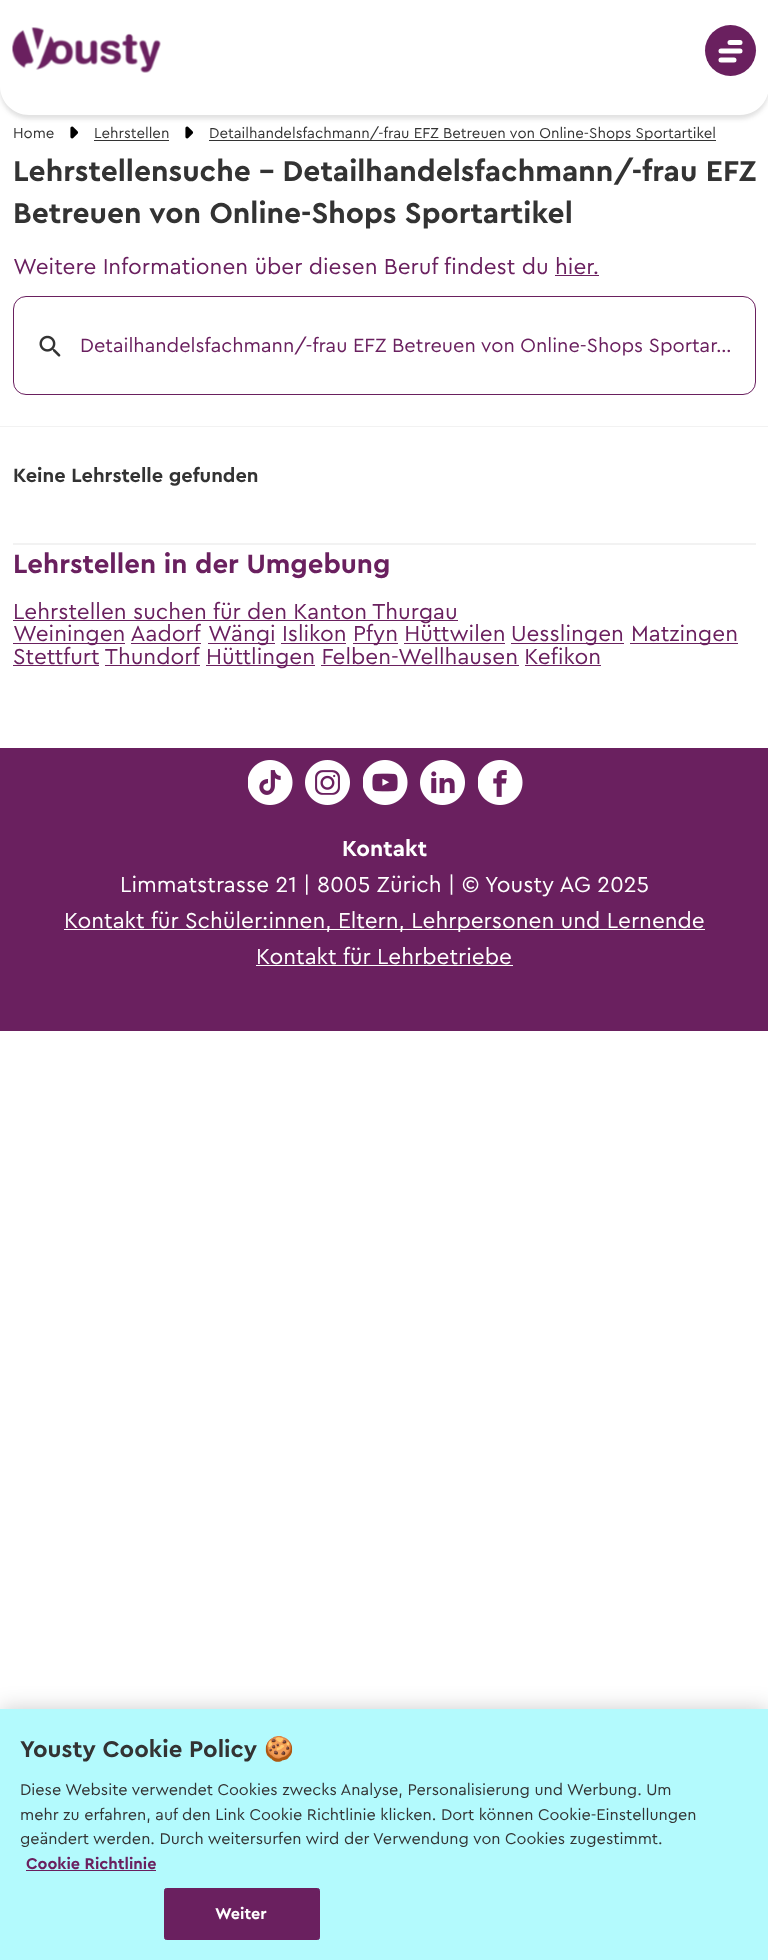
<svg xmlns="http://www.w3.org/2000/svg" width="768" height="1960">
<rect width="100%" height="100%" fill="#fff"/>
<rect y="4" width="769" height="115" rx="29" fill="#33333326" filter="blur(2px)"/>
<path d="M0 0h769v86c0 16-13 29-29 29h-711c-16 0-29-13-29-29z" fill="#fff"/>
<image x="12" y="27" width="149" height="46" href="media/1.png"/>
<circle cx="730.5" cy="50.5" r="25.5" fill="#6a205f"/>
<path d="M730 42.5h10m-19 8.5h19m-19 9h13" fill="none" stroke="#fff" stroke-width="5" stroke-linecap="round"/>
<text x="13" y="138" style="font-family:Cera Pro;font-size:15px;fill:#333">Home</text>
<image x="70" y="126" width="9" height="13" href="media/2.png"/>
<text x="94" y="138" style="font-family:Cera Pro;font-size:15px;fill:#333">Lehrstellen</text>
<rect x="94" y="140" width="75" height="1" fill="#333"/>
<image x="185" y="126" width="9" height="13" href="media/2.png"/>
<rect x="209" y="140" width="507" height="1" fill="#333"/>
<text x="209" y="138" style="font-family:Cera Pro;font-size:15px;fill:#333">Detailhandelsfachmann/-frau EFZ Betreuen von Online-Shops Sportartikel</text>
<rect y="426" width="768" height="1" fill="#f2f2f2"/>
<text x="13" y="181" style="font-family:Cera Pro;font-size:30px;font-weight:bold;fill:#333">Lehrstellensuche - Detailhandelsfachmann/-frau EFZ</text>
<text x="13" y="223" style="font-family:Cera Pro;font-size:30px;font-weight:bold;fill:#333">Betreuen von Online-Shops Sportartikel</text>
<text x="13" y="274" style="font-family:Cera Pro;font-size:22.6px;fill:#6a205f">Weitere Informationen über diesen Beruf findest du hier.</text>
<rect x="555" y="275" width="44" height="1" fill="#6a205f"/>
<image x="39" y="335" width="22" height="22" href="media/3.png"/>
<rect x="13.5" y="296.5" width="742" height="98" rx="12.5" fill="none" stroke="#6a205f"/>
<text x="80" y="352" style="font-family:Cera Pro;font-size:20px;fill:#6a205f">Detailhandelsfachmann/-frau EFZ Betreuen von Online-Shops Sportar…</text>
<text x="13" y="482" style="font-family:Cera Pro;font-size:20px;font-weight:bold;fill:#333">Keine Lehrstelle gefunden</text>
<rect x="13" y="543" width="743" height="2" fill="#f2f2f2"/>
<text x="13" y="573" style="font-family:Cera Pro;font-size:27.6px;font-weight:bold;fill:#6a205f">Lehrstellen in der Umgebung</text>
<rect x="13" y="620" width="445" height="1" fill="#6a205f"/>
<text x="13" y="619" style="font-family:Cera Pro;font-size:22.6px;fill:#6a205f">Lehrstellen suchen für den Kanton Thurgau</text>
<rect x="13" y="643" width="112" height="1" fill="#6a205f"/>
<text x="13" y="641" style="font-family:Cera Pro;font-size:22.6px;fill:#6a205f">Weiningen Aadorf</text>
<rect x="208" y="643" width="67" height="1" fill="#6a205f"/>
<text x="208" y="641" style="font-family:Cera Pro;font-size:22.6px;fill:#6a205f">Wängi Islikon</text>
<rect x="353" y="643" width="45" height="1" fill="#6a205f"/>
<text x="353" y="641" style="font-family:Cera Pro;font-size:22.6px;fill:#6a205f">Pfyn Hüttwilen</text>
<rect x="511" y="643" width="113" height="1" fill="#6a205f"/>
<text x="511" y="641" style="font-family:Cera Pro;font-size:22.6px;fill:#6a205f">Uesslingen</text>
<rect x="630" y="643" width="108" height="1" fill="#6a205f"/>
<text x="631" y="641" style="font-family:Cera Pro;font-size:22.6px;fill:#6a205f">Matzingen</text>
<rect x="131" y="643" width="70" height="1" fill="#6a205f"/>
<rect x="281" y="643" width="65" height="1" fill="#6a205f"/>
<rect x="404" y="643" width="101" height="1" fill="#6a205f"/>
<text x="13" y="664" style="font-family:Cera Pro;font-size:22.6px;fill:#6a205f">Stettfurt Thundorf</text>
<rect x="13" y="665" width="86" height="1" fill="#6a205f"/>
<rect x="206" y="665" width="109" height="1" fill="#6a205f"/>
<text x="206" y="664" style="font-family:Cera Pro;font-size:22.6px;fill:#6a205f">Hüttlingen Felben-Wellhausen Kefikon</text>
<rect x="105" y="665" width="95" height="1" fill="#6a205f"/>
<rect x="321" y="665" width="198" height="1" fill="#6a205f"/>
<rect x="525" y="665" width="76" height="1" fill="#6a205f"/>
<rect y="748" width="768" height="283" fill="#6a205f"/>
<image x="248" y="760" width="45" height="45" href="media/4.png"/>
<image x="305" y="760" width="45" height="45" href="media/5.png"/>
<image x="363" y="760" width="45" height="45" href="media/6.png"/>
<image x="420" y="760" width="45" height="45" href="media/7.png"/>
<image x="478" y="760" width="45" height="45" href="media/8.png"/>
<text x="342" y="856" style="font-family:Cera Pro;font-size:22.6px;font-weight:bold;fill:#fff">Kontakt</text>
<text x="120" y="892" style="font-family:Cera Pro;font-size:22.6px;fill:#fff">Limmatstrasse 21 | 8005 Zürich | © Yousty AG 2025</text>
<rect x="64" y="929" width="641" height="1" fill="#fff"/>
<text x="64" y="928" style="font-family:Cera Pro;font-size:22.6px;fill:#fff">Kontakt für Schüler:innen, Eltern, Lehrpersonen und Lernende</text>
<text x="256" y="964" style="font-family:Cera Pro;font-size:22.6px;fill:#fff">Kontakt für Lehrbetriebe</text>
<rect x="256" y="965" width="257" height="1" fill="#fff"/>
<rect y="1709" width="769" height="251" fill="#00000033" filter="blur(11px)"/>
<rect y="1709" width="768" height="251" fill="#b3fafd"/>
<text x="20" y="1757" style="font-family:Cera Pro;font-size:24px;font-weight:bold;fill:#333">Yousty Cookie Policy</text>
<text x="264" y="1757" style="font-family:Noto Color Emoji;font-size:24px;font-weight:bold;fill:#333">🍪</text>
<text x="20" y="1795" style="font-family:Cera Pro;font-size:16.25px;fill:#333">Diese Website verwendet Cookies zwecks Analyse, Personalisierung und Werbung. Um</text>
<text x="20" y="1820" style="font-family:Cera Pro;font-size:16.25px;fill:#333">mehr zu erfahren, auf den Link Cookie Richtlinie klicken. Dort können Cookie-Einstellungen</text>
<text x="20" y="1844" style="font-family:Cera Pro;font-size:16.25px;fill:#333">geändert werden. Durch weitersurfen wird der Verwendung von Cookies zugestimmt.</text>
<text x="26" y="1869" style="font-family:Cera Pro;font-size:16.25px;font-weight:bold;fill:#6a205f">Cookie Richtlinie</text>
<rect x="26" y="1870" width="130" height="1" fill="#6a205f"/>
<rect x="164.5" y="1888.5" width="155" height="51" rx="2" fill="#6a205f" stroke="#6a205f"/>
<text x="215" y="1919" style="font-family:Cera Pro;font-size:16.25px;font-weight:bold;fill:#fff">Weiter</text>
</svg>
